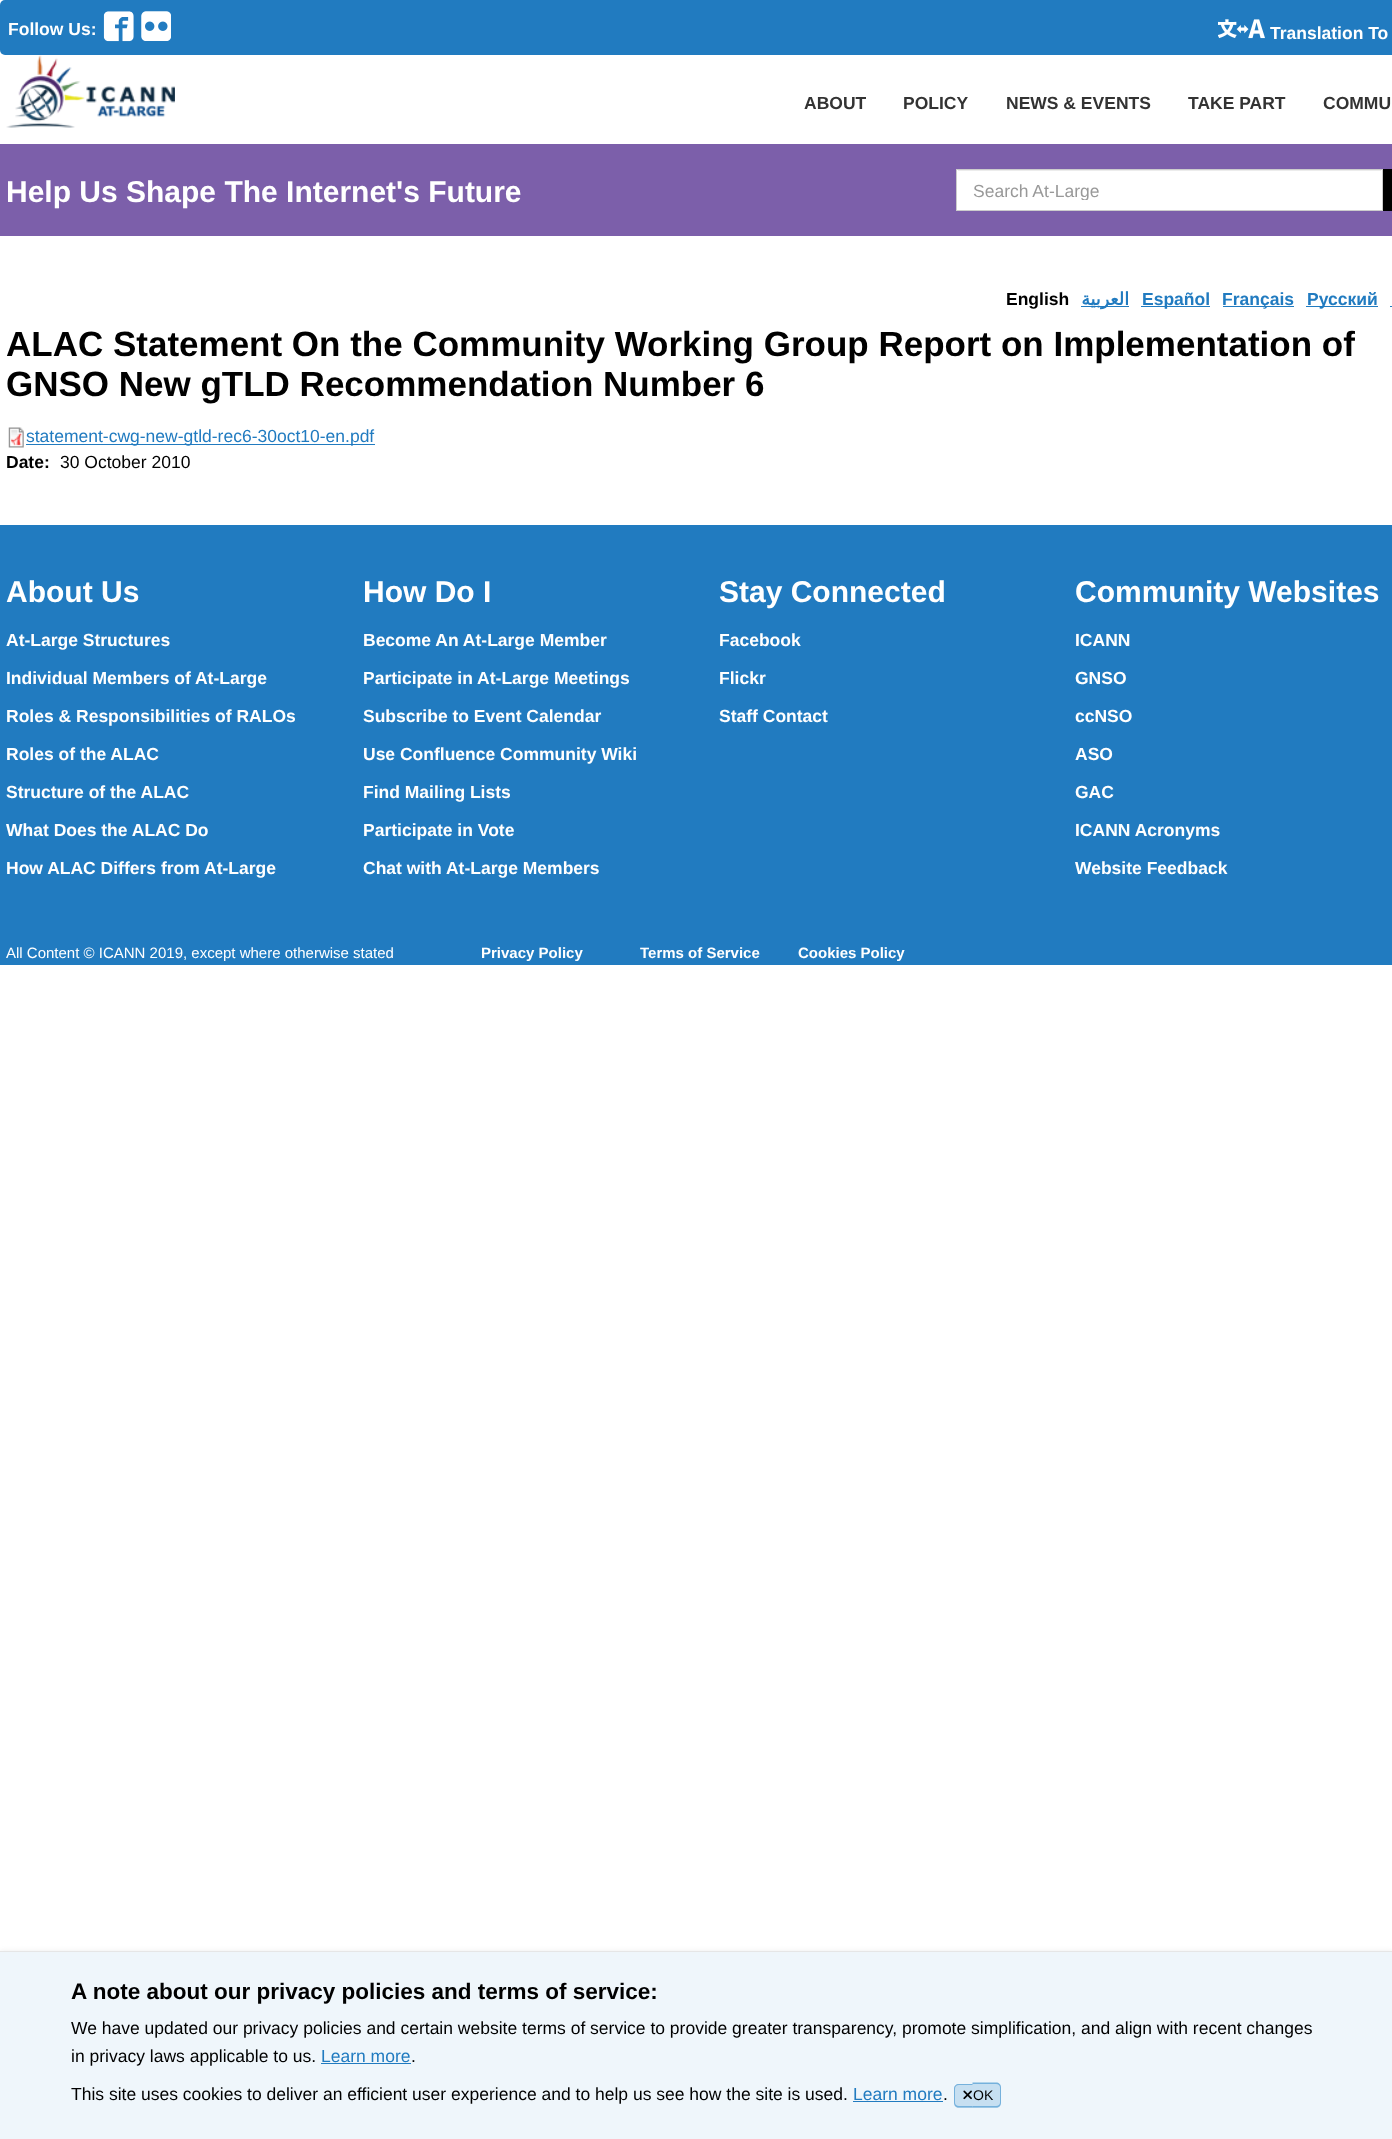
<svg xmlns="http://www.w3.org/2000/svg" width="1392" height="2139">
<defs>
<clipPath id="clip1"><rect x="973" y="180" width="393" height="20"/></clipPath>
</defs>
<rect width="100%" height="100%" fill="#fff"/>
<rect width="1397" height="55" rx="5" fill="#217bc0"/>
<text x="8" y="35" style="font-family:Liberation Sans;font-size:17.5px;font-weight:bold;fill:#fff">Follow Us:</text>
<image x="103" y="11" width="31" height="31" href="media/1.png"/>
<image x="141" y="11" width="30" height="30" href="media/2.png"/>
<image x="1218" y="19" width="47" height="20" href="media/3.png"/>
<text x="1270" y="39" style="font-family:Liberation Sans;font-size:17.5px;font-weight:bold;fill:#fff">Translation To</text>
<image x="6" y="55" width="169" height="73" href="media/4.png"/>
<text x="804" y="109" style="font-family:Liberation Sans;font-size:17.5px;font-weight:bold;fill:#333">ABOUT</text>
<text x="903" y="109" style="font-family:Liberation Sans;font-size:17.5px;font-weight:bold;fill:#333">POLICY</text>
<text x="1006" y="109" style="font-family:Liberation Sans;font-size:17.5px;font-weight:bold;fill:#333">NEWS &amp; EVENTS</text>
<text x="1188" y="109" style="font-family:Liberation Sans;font-size:17.5px;font-weight:bold;fill:#333">TAKE PART</text>
<text x="1323" y="109" style="font-family:Liberation Sans;font-size:17.5px;font-weight:bold;fill:#333">COMMU</text>
<rect y="144" width="1392" height="92" fill="#7c5faa"/>
<text x="6" y="202" style="font-family:Liberation Sans;font-size:30px;font-weight:bold;fill:#fff">Help Us Shape The Internet's Future</text>
<rect x="957" y="170" width="425" height="40" fill="#fff"/>
<rect x="958" y="170" width="423" height="1" fill="#ececec"/>
<rect x="956.5" y="169.5" width="426" height="41" fill="none" stroke="#ccc"/>
<g clip-path="url(#clip1)">
<text x="973" y="197" style="font-family:Liberation Sans;font-size:17.5px;fill:#999">Search At-Large</text>
</g>
<rect x="1383" y="169" width="9" height="42" fill="#000"/>
<text x="1006" y="305" style="font-family:Liberation Sans;font-size:17.5px;font-weight:bold;fill:#000">English</text>
<rect x="1081" y="306" width="48" height="1" fill="#217bc0"/>
<text x="1129" y="305" style="font-family:DejaVu Sans;font-size:17.5px;font-weight:bold;direction:rtl;fill:#217bc0">العربية</text>
<rect x="1141" y="306" width="69" height="1" fill="#217bc0"/>
<text x="1142" y="305" style="font-family:Liberation Sans;font-size:17.5px;font-weight:bold;fill:#217bc0">Español</text>
<rect x="1223" y="306" width="71" height="1" fill="#217bc0"/>
<text x="1222" y="305" style="font-family:Liberation Sans;font-size:17.5px;font-weight:bold;fill:#217bc0">Français</text>
<rect x="1306" y="306" width="72" height="1" fill="#217bc0"/>
<text x="1307" y="305" style="font-family:Liberation Sans;font-size:17.5px;font-weight:bold;fill:#217bc0">Pусский</text>
<rect x="1390" y="306" width="2" height="1" fill="#217bc0"/>
<text x="6" y="356" style="font-family:Liberation Sans;font-size:35px;font-weight:bold;fill:#000">ALAC Statement On the Community Working Group Report on Implementation of</text>
<text x="6" y="396" style="font-family:Liberation Sans;font-size:35px;font-weight:bold;fill:#000">GNSO New gTLD Recommendation Number 6</text>
<image x="8" y="427" width="16" height="21" href="media/5.png"/>
<rect x="26" y="444" width="349" height="1" fill="#217bc0"/>
<text x="26" y="442" style="font-family:Liberation Sans;font-size:17.5px;fill:#217bc0">statement-cwg-new-gtld-rec6-30oct10-en.pdf</text>
<text x="6" y="468" style="font-family:Liberation Sans;font-size:17.5px;font-weight:bold;fill:#000">Date:</text>
<text x="60" y="468" style="font-family:Liberation Sans;font-size:17.5px;fill:#000">30 October 2010</text>
<rect y="525" width="1392" height="440" fill="#217bc0"/>
<text x="6" y="602" style="font-family:Liberation Sans;font-size:30px;font-weight:bold;fill:#fff">About Us</text>
<text x="6" y="646" style="font-family:Liberation Sans;font-size:17.5px;font-weight:bold;fill:#fff">At-Large Structures</text>
<text x="6" y="684" style="font-family:Liberation Sans;font-size:17.5px;font-weight:bold;fill:#fff">Individual Members of At-Large</text>
<text x="6" y="722" style="font-family:Liberation Sans;font-size:17.5px;font-weight:bold;fill:#fff">Roles &amp; Responsibilities of RALOs</text>
<text x="6" y="760" style="font-family:Liberation Sans;font-size:17.5px;font-weight:bold;fill:#fff">Roles of the ALAC</text>
<text x="6" y="798" style="font-family:Liberation Sans;font-size:17.5px;font-weight:bold;fill:#fff">Structure of the ALAC</text>
<text x="6" y="836" style="font-family:Liberation Sans;font-size:17.5px;font-weight:bold;fill:#fff">What Does the ALAC Do</text>
<text x="6" y="874" style="font-family:Liberation Sans;font-size:17.5px;font-weight:bold;fill:#fff">How ALAC Differs from At-Large</text>
<text x="363" y="602" style="font-family:Liberation Sans;font-size:30px;font-weight:bold;fill:#fff">How Do I</text>
<text x="363" y="646" style="font-family:Liberation Sans;font-size:17.5px;font-weight:bold;fill:#fff">Become An At-Large Member</text>
<text x="363" y="684" style="font-family:Liberation Sans;font-size:17.5px;font-weight:bold;fill:#fff">Participate in At-Large Meetings</text>
<text x="363" y="722" style="font-family:Liberation Sans;font-size:17.5px;font-weight:bold;fill:#fff">Subscribe to Event Calendar</text>
<text x="363" y="760" style="font-family:Liberation Sans;font-size:17.5px;font-weight:bold;fill:#fff">Use Confluence Community Wiki</text>
<text x="363" y="798" style="font-family:Liberation Sans;font-size:17.5px;font-weight:bold;fill:#fff">Find Mailing Lists</text>
<text x="363" y="836" style="font-family:Liberation Sans;font-size:17.5px;font-weight:bold;fill:#fff">Participate in Vote</text>
<text x="363" y="874" style="font-family:Liberation Sans;font-size:17.5px;font-weight:bold;fill:#fff">Chat with At-Large Members</text>
<text x="719" y="602" style="font-family:Liberation Sans;font-size:30px;font-weight:bold;fill:#fff">Stay Connected</text>
<text x="719" y="646" style="font-family:Liberation Sans;font-size:17.5px;font-weight:bold;fill:#fff">Facebook</text>
<text x="719" y="684" style="font-family:Liberation Sans;font-size:17.5px;font-weight:bold;fill:#fff">Flickr</text>
<text x="719" y="722" style="font-family:Liberation Sans;font-size:17.5px;font-weight:bold;fill:#fff">Staff Contact</text>
<text x="1075" y="602" style="font-family:Liberation Sans;font-size:30px;font-weight:bold;fill:#fff">Community Websites</text>
<text x="1075" y="646" style="font-family:Liberation Sans;font-size:17.5px;font-weight:bold;fill:#fff">ICANN</text>
<text x="1075" y="684" style="font-family:Liberation Sans;font-size:17.5px;font-weight:bold;fill:#fff">GNSO</text>
<text x="1075" y="722" style="font-family:Liberation Sans;font-size:17.5px;font-weight:bold;fill:#fff">ccNSO</text>
<text x="1075" y="760" style="font-family:Liberation Sans;font-size:17.5px;font-weight:bold;fill:#fff">ASO</text>
<text x="1075" y="798" style="font-family:Liberation Sans;font-size:17.5px;font-weight:bold;fill:#fff">GAC</text>
<text x="1075" y="836" style="font-family:Liberation Sans;font-size:17.5px;font-weight:bold;fill:#fff">ICANN Acronyms</text>
<text x="1075" y="874" style="font-family:Liberation Sans;font-size:17.5px;font-weight:bold;fill:#fff">Website Feedback</text>
<text x="6" y="958" style="font-family:Liberation Sans;font-size:15px;fill:#fff">All Content © ICANN 2019, except where otherwise stated</text>
<text x="481" y="958" style="font-family:Liberation Sans;font-size:15px;font-weight:bold;fill:#fff">Privacy Policy</text>
<text x="640" y="958" style="font-family:Liberation Sans;font-size:15px;font-weight:bold;fill:#fff">Terms of Service</text>
<text x="798" y="958" style="font-family:Liberation Sans;font-size:15px;font-weight:bold;fill:#fff">Cookies Policy</text>
<rect y="1950" width="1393" height="189" fill="#0000000d" filter="blur(2px)"/>
<rect y="1952" width="1392" height="187" fill="#eff6fb"/>
<rect y="1951" width="1392" height="1" fill="#e6e6e6"/>
<text x="71" y="1999" style="font-family:Liberation Sans;font-size:22.5px;font-weight:bold;fill:#000">A note about our privacy policies and terms of service:</text>
<text x="71" y="2034" style="font-family:Liberation Sans;font-size:17.5px;fill:#000">We have updated our privacy policies and certain website terms of service to provide greater transparency, promote simplification, and align with recent changes</text>
<text x="71" y="2062" style="font-family:Liberation Sans;font-size:17.5px;fill:#000">in privacy laws applicable to us.</text>
<text x="321" y="2062" style="font-family:Liberation Sans;font-size:17.5px;fill:#217bc0">Learn more</text>
<rect x="321" y="2063" width="90" height="1" fill="#217bc0"/>
<text x="411" y="2062" style="font-family:Liberation Sans;font-size:17.5px;fill:#000">.</text>
<text x="71" y="2100" style="font-family:Liberation Sans;font-size:17.5px;fill:#000">This site uses cookies to deliver an efficient user experience and to help us see how the site is used.</text>
<text x="853" y="2100" style="font-family:Liberation Sans;font-size:17.5px;fill:#217bc0">Learn more</text>
<rect x="853" y="2101" width="90" height="1" fill="#217bc0"/>
<text x="943" y="2100" style="font-family:Liberation Sans;font-size:17.5px;fill:#000">.</text>
<path d="M959 2084h14v24h-14c-3 0-5-2-5-5v-14c0-3 2-5 5-5z" fill="#c6dff1"/>
<path d="M959 2084h13.5v23.5h-13.5c-3 0-5-2-5-5v-13.5c0-3 2-5 5-5zm0 1h13.5v21h-13.5c-2.5 0-4-1.5-4-3.5v-13.5c0-2.5 1.5-4 4-4z" fill="#75b1dc" fill-rule="evenodd"/>
<path d="M973 2083h23c3 0 5 2 5 5v15c0 3-2 5-5 5h-23z" fill="#c6dff1"/>
<path d="M972.5 2082.5h23.5c3 0 5 2 5 5v15c0 3-2 5-5 5h-23.5zm0 1.5h23.5c2.5 0 4 1.5 4 3.5v15c0 2-1.5 3.5-4 3.5h-23.5z" fill="#75b1dc" fill-rule="evenodd"/>
<image x="963" y="2090" width="9" height="10" href="media/6.png"/>
<text x="973" y="2100" style="font-family:Liberation Sans;font-size:14px;fill:#000">OK</text>
</svg>
